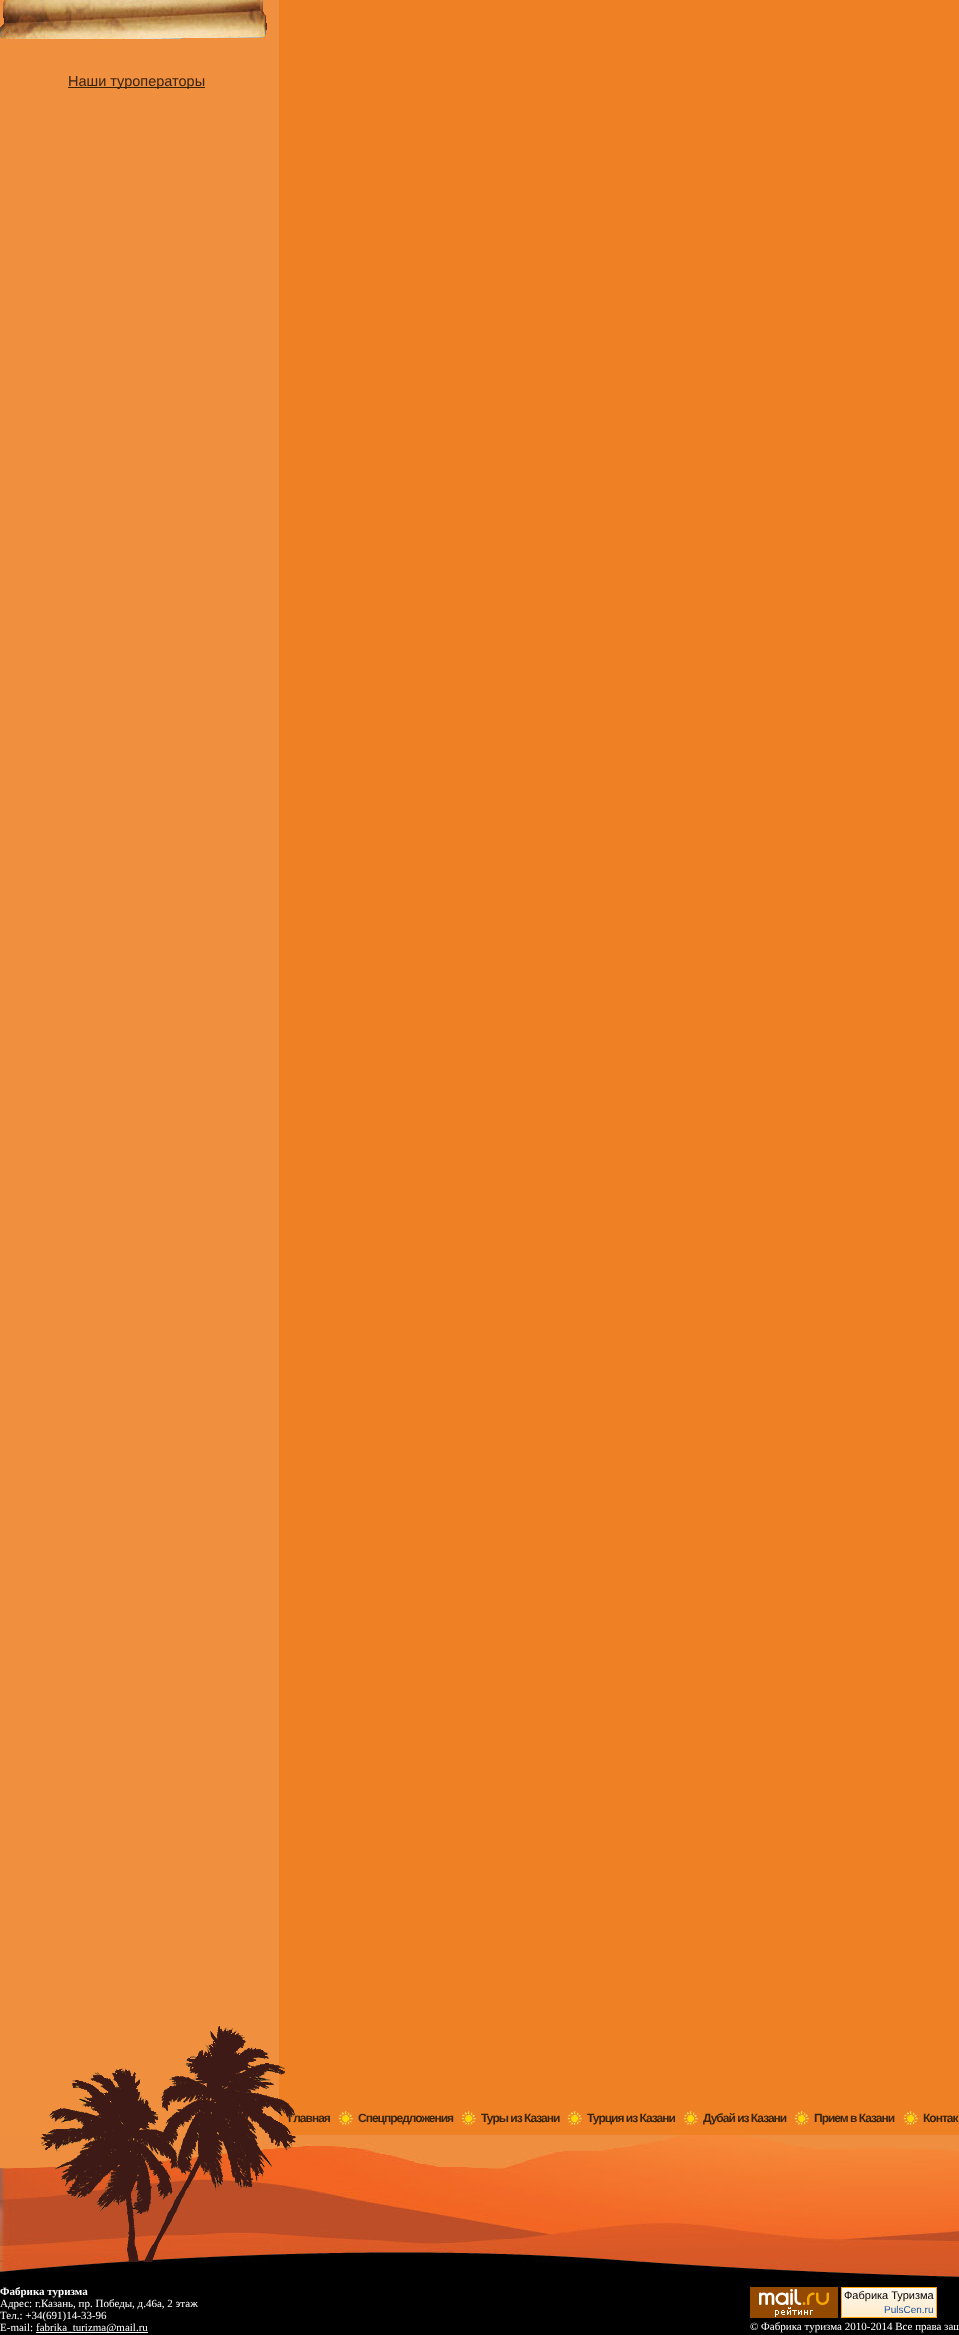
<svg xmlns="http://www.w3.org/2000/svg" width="959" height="2335">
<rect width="100%" height="100%" fill="#f08f3e"/>
<rect x="279" width="680" height="2135" fill="#ef8024"/>
<image x="0" y="0" width="267" height="41" href="media/1.png"/>
<rect x="68" y="87" width="137" height="1" fill="#39240a"/>
<text x="68" y="86" style="font-family:Liberation Sans;font-size:14.5px;fill:#39240a">Наши туроператоры</text>
<text x="288" y="2122" style="font-family:Liberation Sans;font-size:12px;font-weight:bold;letter-spacing:-1px;fill:#39240a">Главная</text>
<image x="0" y="2135" width="959" height="200" href="media/5.png"/>
<image x="40" y="2026" width="256" height="236" href="media/2.png"/>
<image x="338" y="2111" width="15" height="15" href="media/3.png"/>
<text x="358" y="2122" style="font-family:Liberation Sans;font-size:12px;font-weight:bold;letter-spacing:-1px;fill:#39240a">Спецпредложения</text>
<image x="461" y="2111" width="15" height="15" href="media/3.png"/>
<text x="481" y="2122" style="font-family:Liberation Sans;font-size:12px;font-weight:bold;letter-spacing:-1px;fill:#39240a">Туры из Казани</text>
<image x="567" y="2111" width="15" height="15" href="media/4.png"/>
<text x="587" y="2122" style="font-family:Liberation Sans;font-size:12px;font-weight:bold;letter-spacing:-1px;fill:#39240a">Турция из Казани</text>
<image x="683" y="2111" width="15" height="15" href="media/4.png"/>
<text x="703" y="2122" style="font-family:Liberation Sans;font-size:12px;font-weight:bold;letter-spacing:-1px;fill:#39240a">Дубай из Казани</text>
<image x="794" y="2111" width="15" height="15" href="media/3.png"/>
<text x="814" y="2122" style="font-family:Liberation Sans;font-size:12px;font-weight:bold;letter-spacing:-1px;fill:#39240a">Прием в Казани</text>
<image x="903" y="2111" width="15" height="15" href="media/3.png"/>
<text x="923" y="2122" style="font-family:Liberation Sans;font-size:12px;font-weight:bold;letter-spacing:-1px;fill:#39240a">Контак</text>
<text x="0" y="2295" style="font-family:Liberation Serif;font-size:11px;font-weight:bold;fill:#fff">Фабрика туризма</text>
<text x="0" y="2307" style="font-family:Liberation Serif;font-size:11px;fill:#fff">Адрес: г.Казань, пр. Победы, д.46а, 2 этаж</text>
<text x="0" y="2319" style="font-family:Liberation Serif;font-size:11px;fill:#fff">Тел.: +34(691)14-33-96</text>
<text x="0" y="2331" style="font-family:Liberation Serif;font-size:11px;fill:#fff">E-mail:</text>
<rect x="36" y="2332" width="112" height="1" fill="#fff"/>
<text x="36" y="2331" style="font-family:Liberation Serif;font-size:11px;fill:#fff">fabrika_turizma@mail.ru</text>
<image x="750" y="2287" width="88" height="31" href="media/6.png"/>
<image x="842" y="2288" width="94" height="29" href="media/7.png"/>
<rect x="841.5" y="2287.5" width="95" height="30" fill="none" stroke="#ffa200"/>
<text x="844" y="2299" style="font-family:Liberation Sans;font-size:11px;fill:#000">Фабрика Туризма</text>
<text x="884" y="2313" style="font-family:Liberation Sans;font-size:10px;fill:#1c53a2">PulsCen.ru</text>
<text x="750" y="2330" style="font-family:Liberation Serif;font-size:11px;fill:#fff">© Фабрика туризма 2010-2014 Все права защ</text>
</svg>
